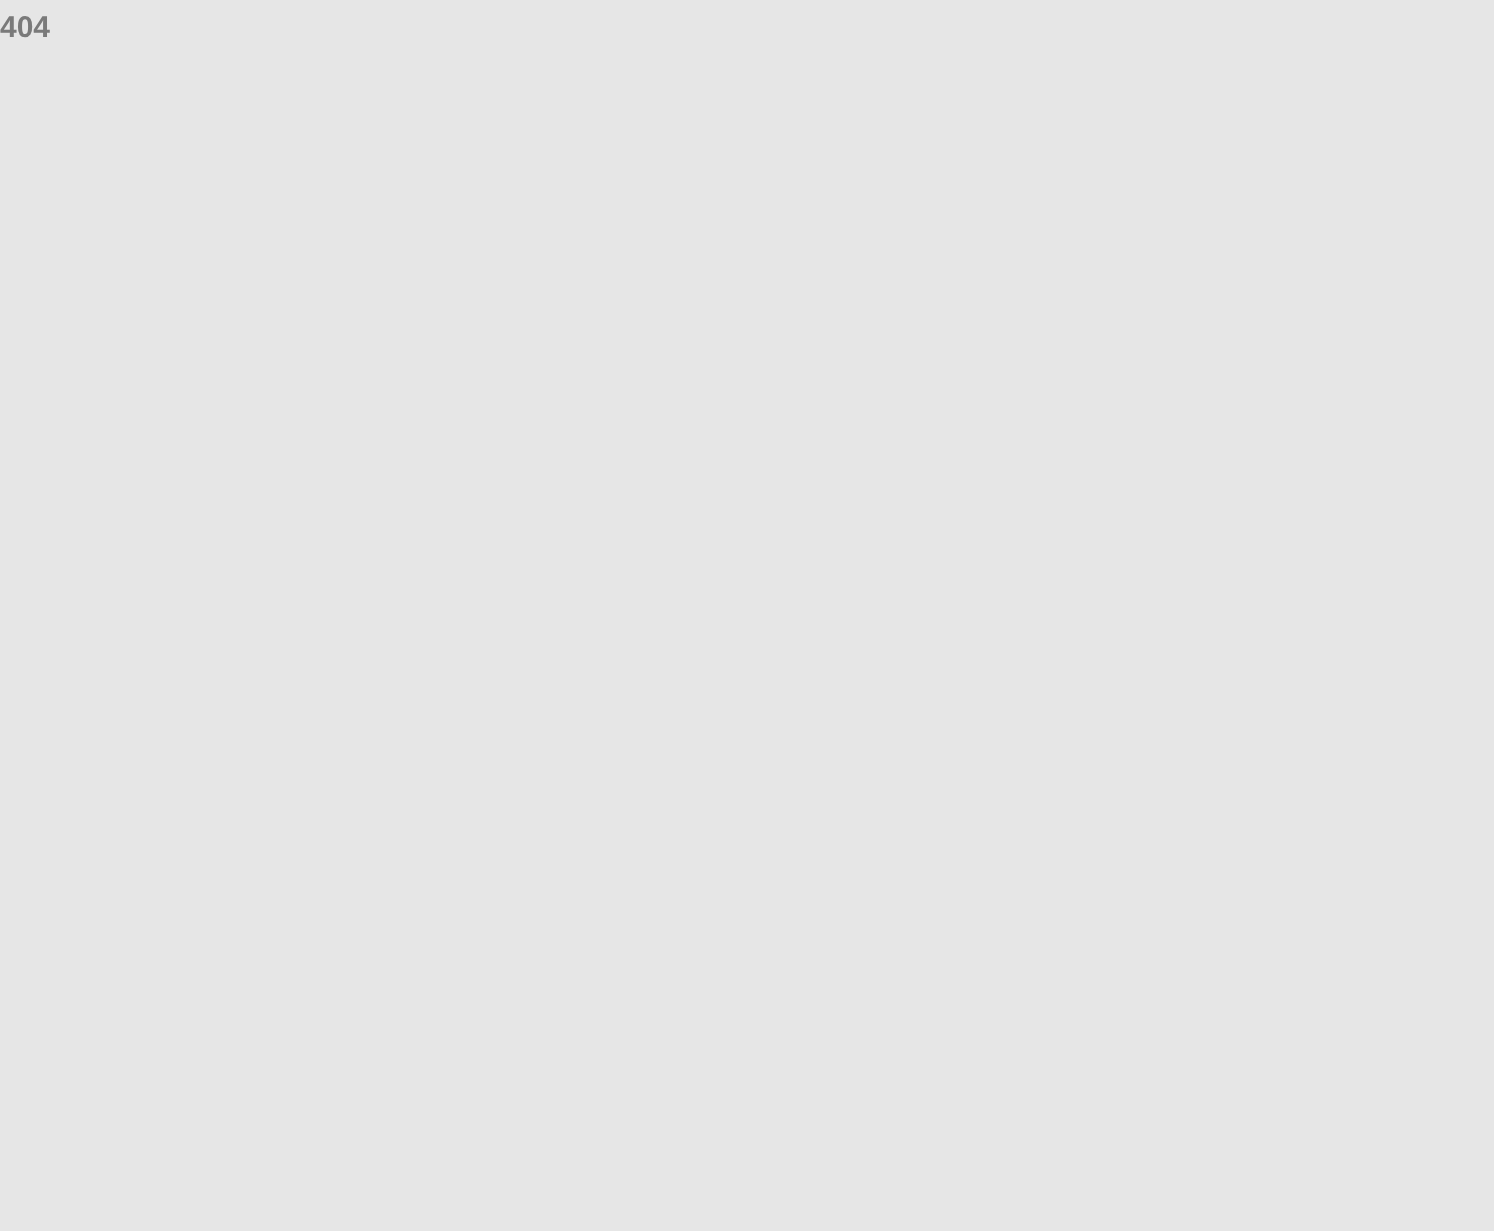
<svg xmlns="http://www.w3.org/2000/svg" width="1494" height="1231">
<rect width="100%" height="100%" fill="#e6e6e6"/>
<text x="0" y="37" style="font-family:Liberation Sans;font-size:30px;font-weight:bold;fill:#7a7a7a">404</text>
</svg>
